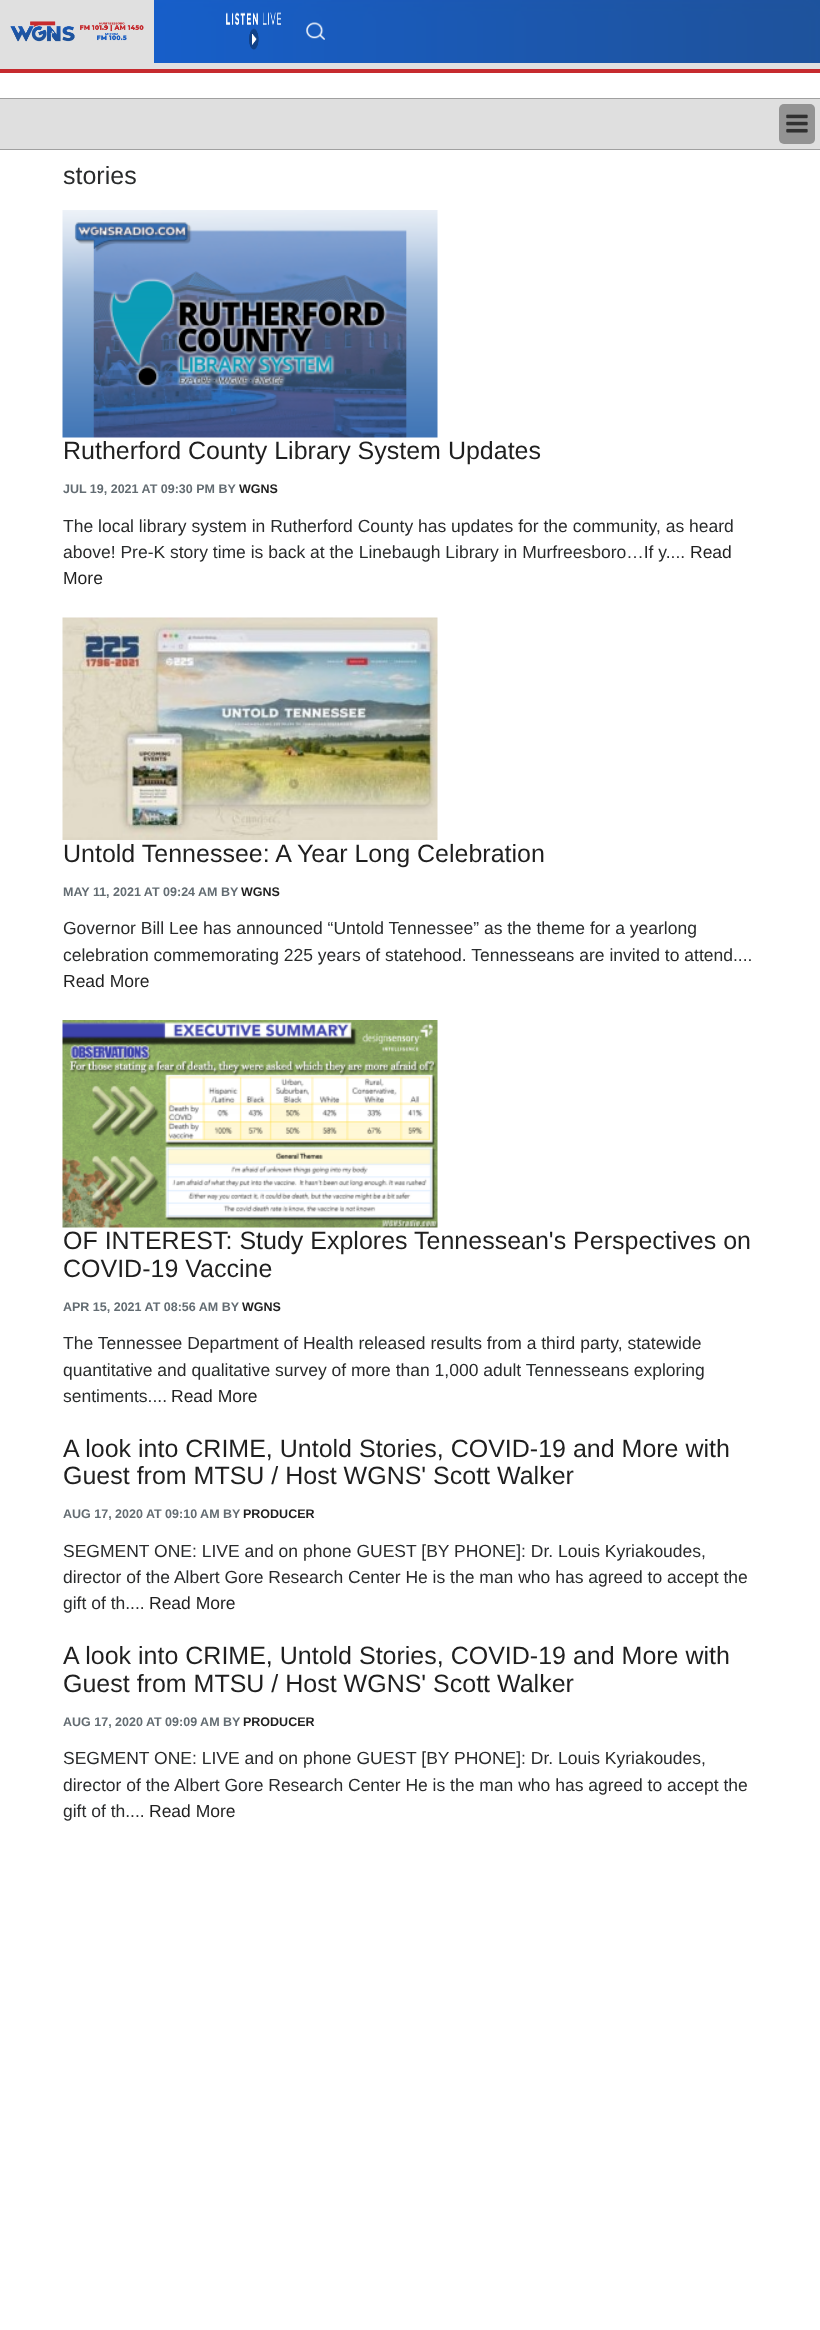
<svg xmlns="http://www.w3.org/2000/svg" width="820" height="2330">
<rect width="100%" height="100%" fill="#fff"/>
<image x="154" y="0" width="666" height="63" href="media/1.png"/>
<rect y="63" width="820" height="6" fill="#e0e0e0"/>
<rect width="154" height="63" fill="#e0e0e0"/>
<image x="10" y="21" width="134" height="21" href="media/2.png"/>
<image x="226" y="12" width="55" height="38" href="media/3.png"/>
<image x="306" y="22" width="19" height="18" href="media/4.png"/>
<rect y="69" width="820" height="4" fill="#c62a2e"/>
<rect y="99" width="820" height="50" fill="#dfdfdf"/>
<rect y="98" width="820" height="1" fill="#a0a0a0"/>
<rect y="149" width="820" height="1" fill="#a0a0a0"/>
<rect x="779" y="104" width="36" height="40" rx="5" fill="#939393"/>
<image x="786" y="114" width="22" height="19" href="media/5.png"/>
<text x="63" y="184" style="font-family:Liberation Sans;font-size:25px;fill:#292b2c">stories</text>
<image x="62" y="210" width="376" height="228" href="media/6.png"/>
<text x="63" y="459" style="font-family:Liberation Sans;font-size:25px;fill:#1f1f1f">Rutherford County Library System Updates</text>
<text x="63" y="493" style="font-family:Liberation Sans;font-size:12.5px;font-weight:bold;fill:#636c72">JUL 19, 2021 AT 09:30 PM BY</text>
<text x="239" y="493" style="font-family:Liberation Sans;font-size:12.5px;font-weight:bold;fill:#1f1f1f">WGNS</text>
<text x="63" y="532" style="font-family:Liberation Sans;font-size:17.5px;fill:#292b2c">The local library system in Rutherford County has updates for the community, as heard</text>
<text x="63" y="558" style="font-family:Liberation Sans;font-size:17.5px;fill:#292b2c">above! Pre-K story time is back at the Linebaugh Library in Murfreesboro…If y....</text>
<text x="690" y="558" style="font-family:Liberation Sans;font-size:17.5px;fill:#1f1f1f">Read</text>
<text x="63" y="584" style="font-family:Liberation Sans;font-size:17.5px;fill:#1f1f1f">More</text>
<image x="62" y="617" width="376" height="223" href="media/7.png"/>
<text x="63" y="862" style="font-family:Liberation Sans;font-size:25px;fill:#1f1f1f">Untold Tennessee: A Year Long Celebration</text>
<text x="63" y="896" style="font-family:Liberation Sans;font-size:12.5px;font-weight:bold;fill:#636c72">MAY 11, 2021 AT 09:24 AM BY</text>
<text x="241" y="896" style="font-family:Liberation Sans;font-size:12.5px;font-weight:bold;fill:#1f1f1f">WGNS</text>
<text x="63" y="934" style="font-family:Liberation Sans;font-size:17.5px;fill:#292b2c">Governor Bill Lee has announced “Untold Tennessee” as the theme for a yearlong</text>
<text x="63" y="961" style="font-family:Liberation Sans;font-size:17.5px;fill:#292b2c">celebration commemorating 225 years of statehood. Tennesseans are invited to attend....</text>
<text x="63" y="987" style="font-family:Liberation Sans;font-size:17.5px;fill:#1f1f1f">Read More</text>
<image x="62" y="1020" width="376" height="208" href="media/8.png"/>
<text x="63" y="1249" style="font-family:Liberation Sans;font-size:25px;fill:#1f1f1f">OF INTEREST: Study Explores Tennessean's Perspectives on</text>
<text x="63" y="1277" style="font-family:Liberation Sans;font-size:25px;fill:#1f1f1f">COVID-19 Vaccine</text>
<text x="63" y="1311" style="font-family:Liberation Sans;font-size:12.5px;font-weight:bold;fill:#636c72">APR 15, 2021 AT 08:56 AM BY</text>
<text x="242" y="1311" style="font-family:Liberation Sans;font-size:12.5px;font-weight:bold;fill:#1f1f1f">WGNS</text>
<text x="63" y="1349" style="font-family:Liberation Sans;font-size:17.5px;fill:#292b2c">The Tennessee Department of Health released results from a third party, statewide</text>
<text x="63" y="1376" style="font-family:Liberation Sans;font-size:17.5px;fill:#292b2c">quantitative and qualitative survey of more than 1,000 adult Tennesseans exploring</text>
<text x="63" y="1402" style="font-family:Liberation Sans;font-size:17.5px;fill:#292b2c">sentiments....</text>
<text x="171" y="1402" style="font-family:Liberation Sans;font-size:17.5px;fill:#1f1f1f">Read More</text>
<text x="63" y="1457" style="font-family:Liberation Sans;font-size:25px;fill:#1f1f1f">A look into CRIME, Untold Stories, COVID-19 and More with</text>
<text x="63" y="1484" style="font-family:Liberation Sans;font-size:25px;fill:#1f1f1f">Guest from MTSU / Host WGNS' Scott Walker</text>
<text x="63" y="1518" style="font-family:Liberation Sans;font-size:12.5px;font-weight:bold;fill:#636c72">AUG 17, 2020 AT 09:10 AM BY</text>
<text x="243" y="1518" style="font-family:Liberation Sans;font-size:12.5px;font-weight:bold;fill:#1f1f1f">PRODUCER</text>
<text x="63" y="1557" style="font-family:Liberation Sans;font-size:17.5px;fill:#292b2c">SEGMENT ONE: LIVE and on phone GUEST [BY PHONE]: Dr. Louis Kyriakoudes,</text>
<text x="63" y="1583" style="font-family:Liberation Sans;font-size:17.5px;fill:#292b2c">director of the Albert Gore Research Center He is the man who has agreed to accept the</text>
<text x="63" y="1609" style="font-family:Liberation Sans;font-size:17.5px;fill:#292b2c">gift of th....</text>
<text x="149" y="1609" style="font-family:Liberation Sans;font-size:17.5px;fill:#1f1f1f">Read More</text>
<text x="63" y="1664" style="font-family:Liberation Sans;font-size:25px;fill:#1f1f1f">A look into CRIME, Untold Stories, COVID-19 and More with</text>
<text x="63" y="1692" style="font-family:Liberation Sans;font-size:25px;fill:#1f1f1f">Guest from MTSU / Host WGNS' Scott Walker</text>
<text x="63" y="1726" style="font-family:Liberation Sans;font-size:12.5px;font-weight:bold;fill:#636c72">AUG 17, 2020 AT 09:09 AM BY</text>
<text x="243" y="1726" style="font-family:Liberation Sans;font-size:12.5px;font-weight:bold;fill:#1f1f1f">PRODUCER</text>
<text x="63" y="1764" style="font-family:Liberation Sans;font-size:17.5px;fill:#292b2c">SEGMENT ONE: LIVE and on phone GUEST [BY PHONE]: Dr. Louis Kyriakoudes,</text>
<text x="63" y="1791" style="font-family:Liberation Sans;font-size:17.5px;fill:#292b2c">director of the Albert Gore Research Center He is the man who has agreed to accept the</text>
<text x="63" y="1817" style="font-family:Liberation Sans;font-size:17.5px;fill:#292b2c">gift of th....</text>
<text x="149" y="1817" style="font-family:Liberation Sans;font-size:17.5px;fill:#1f1f1f">Read More</text>
</svg>
